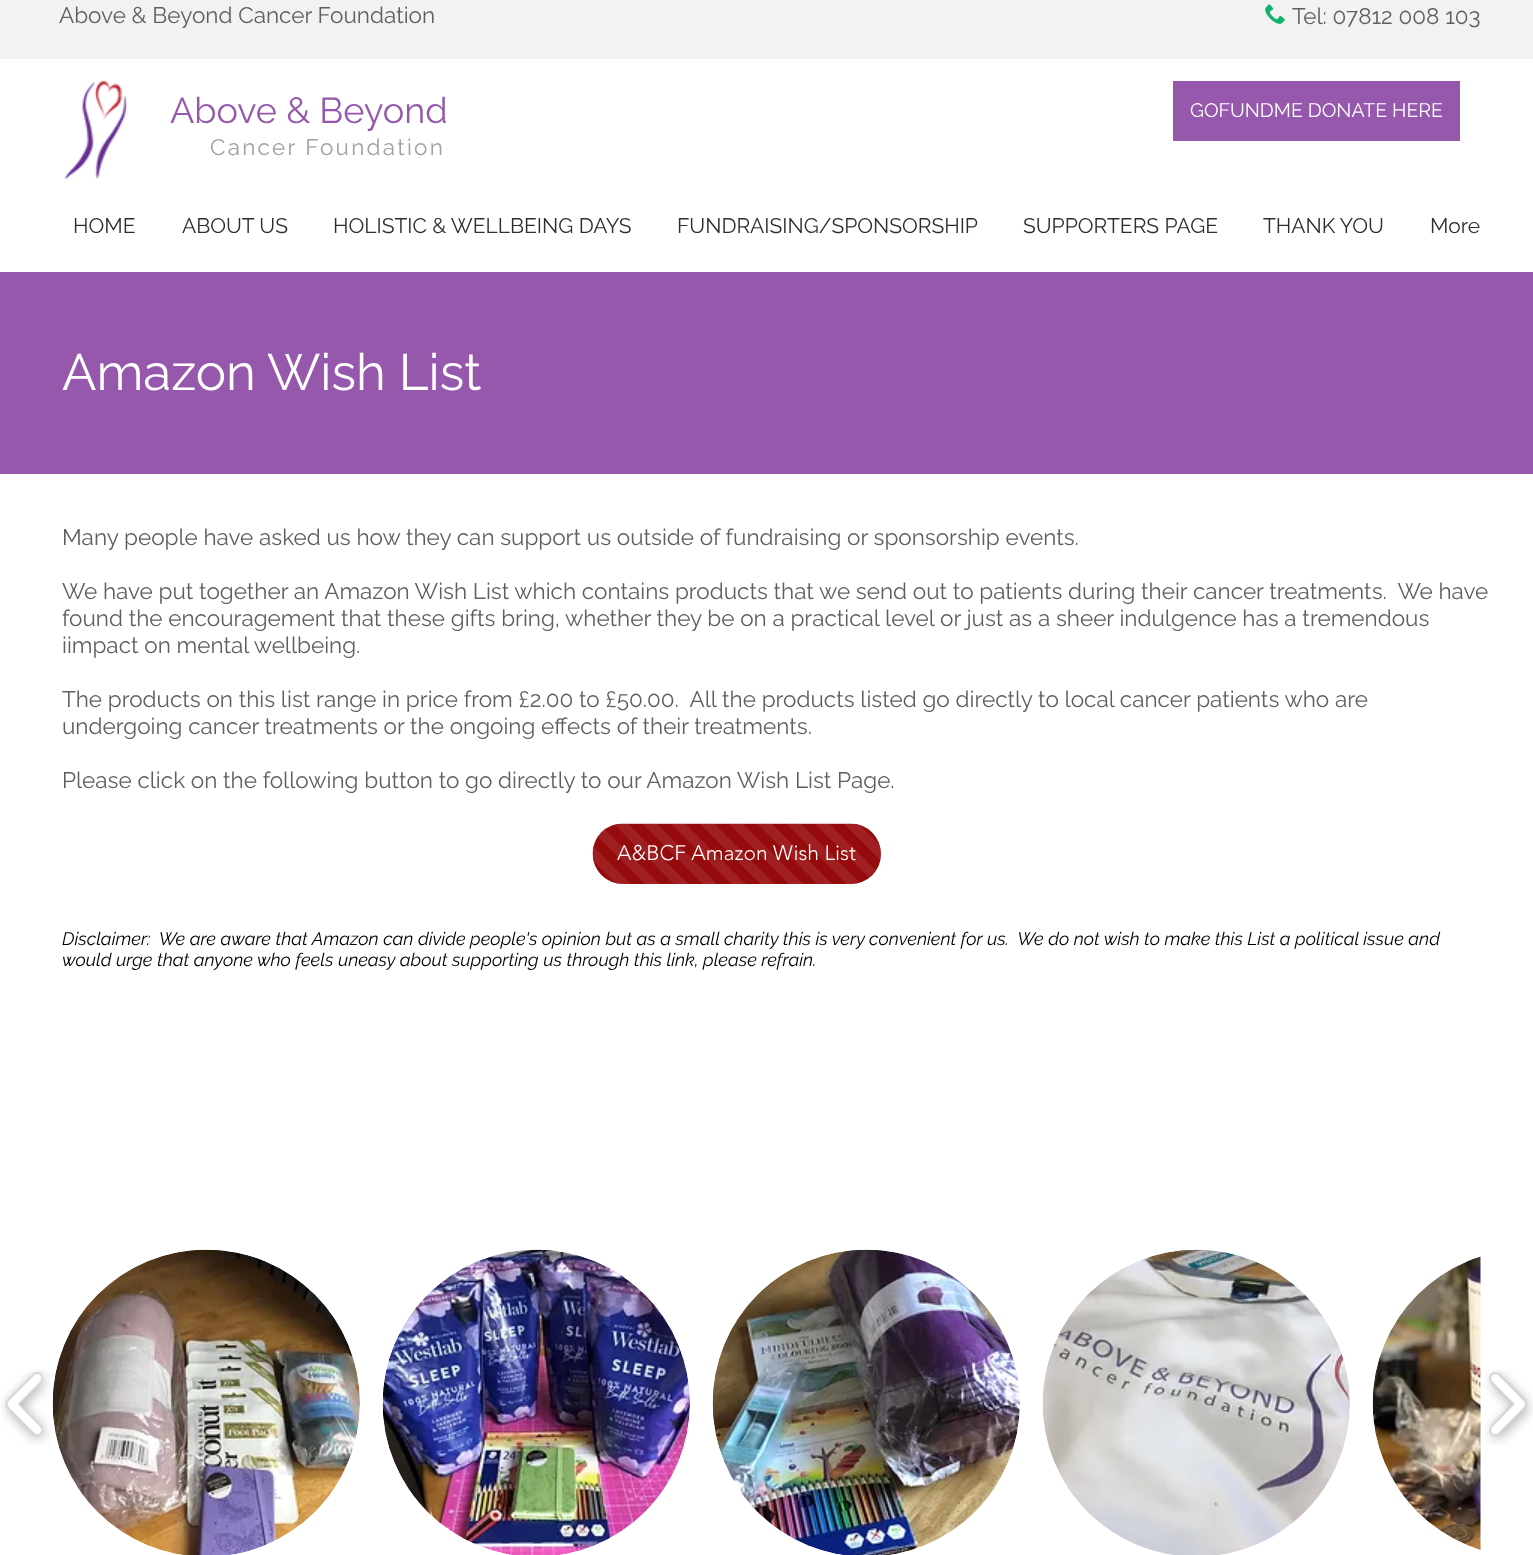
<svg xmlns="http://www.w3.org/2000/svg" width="1533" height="1555">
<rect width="100%" height="100%" fill="#fff"/>
<rect width="1533" height="59" fill="#f2f2f2"/>
<text x="59" y="23" style="font-family:Raleway;font-size:22.5px;fill:#605e5e">Above &amp; Beyond Cancer Foundation</text>
<image x="1265" y="4" width="20" height="20" href="media/1.png"/>
<text x="1292" y="24" style="font-family:Raleway;font-size:22.5px;fill:#605e5e">Tel: 07812 008 103</text>
<image x="64" y="80" width="63" height="99" href="media/2.png"/>
<text x="170" y="123" style="font-family:Raleway;font-size:36px;fill:#9558ad">Above &amp; Beyond</text>
<rect x="1173" y="81" width="287" height="60" fill="#9558ad"/>
<text x="1190" y="117" style="font-family:Raleway;font-size:19.5px;fill:#fff">GOFUNDME DONATE HERE</text>
<text x="210" y="155" style="font-family:Raleway;font-size:22.5px;letter-spacing:2.25px;fill:#a0a09f">Cancer Foundation</text>
<text x="73" y="233" style="font-family:Raleway;font-size:21px;fill:#2f2e2e">HOME</text>
<text x="182" y="233" style="font-family:Raleway;font-size:21px;fill:#2f2e2e">ABOUT US</text>
<text x="333" y="233" style="font-family:Raleway;font-size:21px;fill:#2f2e2e">HOLISTIC &amp; WELLBEING DAYS</text>
<text x="677" y="233" style="font-family:Raleway;font-size:21px;fill:#2f2e2e">FUNDRAISING/SPONSORSHIP</text>
<text x="1023" y="233" style="font-family:Raleway;font-size:21px;fill:#2f2e2e">SUPPORTERS PAGE</text>
<text x="1263" y="233" style="font-family:Raleway;font-size:21px;fill:#2f2e2e">THANK YOU</text>
<text x="1430" y="233" style="font-family:Raleway;font-size:21px;fill:#2f2e2e">More</text>
<rect y="272" width="1533" height="202" fill="#9558ad"/>
<text x="62" y="390" style="font-family:Raleway;font-size:51px;fill:#fff">Amazon Wish List</text>
<text x="62" y="545" style="font-family:Raleway;font-size:22.5px;fill:#605e5e">Many people have asked us how they can support us outside of fundraising or sponsorship events.</text>
<text x="62" y="599" style="font-family:Raleway;font-size:22.5px;fill:#605e5e" xml:space="preserve">We have put together an Amazon Wish List which contains products that we send out to patients during their cancer treatments.  We have</text>
<text x="62" y="626" style="font-family:Raleway;font-size:22.5px;fill:#605e5e">found the encouragement that these gifts bring, whether they be on a practical level or just as a sheer indulgence has a tremendous</text>
<text x="62" y="653" style="font-family:Raleway;font-size:22.5px;fill:#605e5e">iimpact on mental wellbeing.</text>
<text x="62" y="707" style="font-family:Raleway;font-size:22.5px;fill:#605e5e" xml:space="preserve">The products on this list range in price from £2.00 to £50.00.  All the products listed go directly to local cancer patients who are</text>
<text x="62" y="734" style="font-family:Raleway;font-size:22.5px;fill:#605e5e">undergoing cancer treatments or the ongoing effects of their treatments.</text>
<text x="62" y="788" style="font-family:Raleway;font-size:22.5px;fill:#605e5e">Please click on the following button to go directly to our Amazon Wish List Page.</text>
<text x="62" y="945" style="font-family:Raleway;font-size:18px;font-style:italic;fill:#000" xml:space="preserve">Disclaimer:  We are aware that Amazon can divide people's opinion but as a small charity this is very convenient for us.  We do not wish to make this List a political issue and</text>
<text x="62" y="966" style="font-family:Raleway;font-size:18px;font-style:italic;fill:#000">would urge that anyone who feels uneasy about supporting us through this link, please refrain.</text>
<rect x="593" y="824" width="288" height="60" rx="30" fill="#950b0b"/>
<image x="592" y="823" width="289" height="61" href="media/3.png"/>
<text x="617" y="860" style="font-family:'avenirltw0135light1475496';font-size:21px;font-weight:300;fill:#fff">A&amp;BCF Amazon Wish List</text>
<image x="1" y="1369" width="50" height="76" href="media/4.png"/>
<image x="52" y="1249" width="308" height="306" href="media/5.png"/>
<image x="382" y="1249" width="308" height="306" href="media/6.png"/>
<image x="712" y="1249" width="308" height="306" href="media/7.png"/>
<image x="1042" y="1249" width="308" height="306" href="media/8.png"/>
<image x="1372" y="1256" width="109" height="294" href="media/9.png"/>
<image x="1485" y="1369" width="48" height="76" href="media/10.png"/>
</svg>
